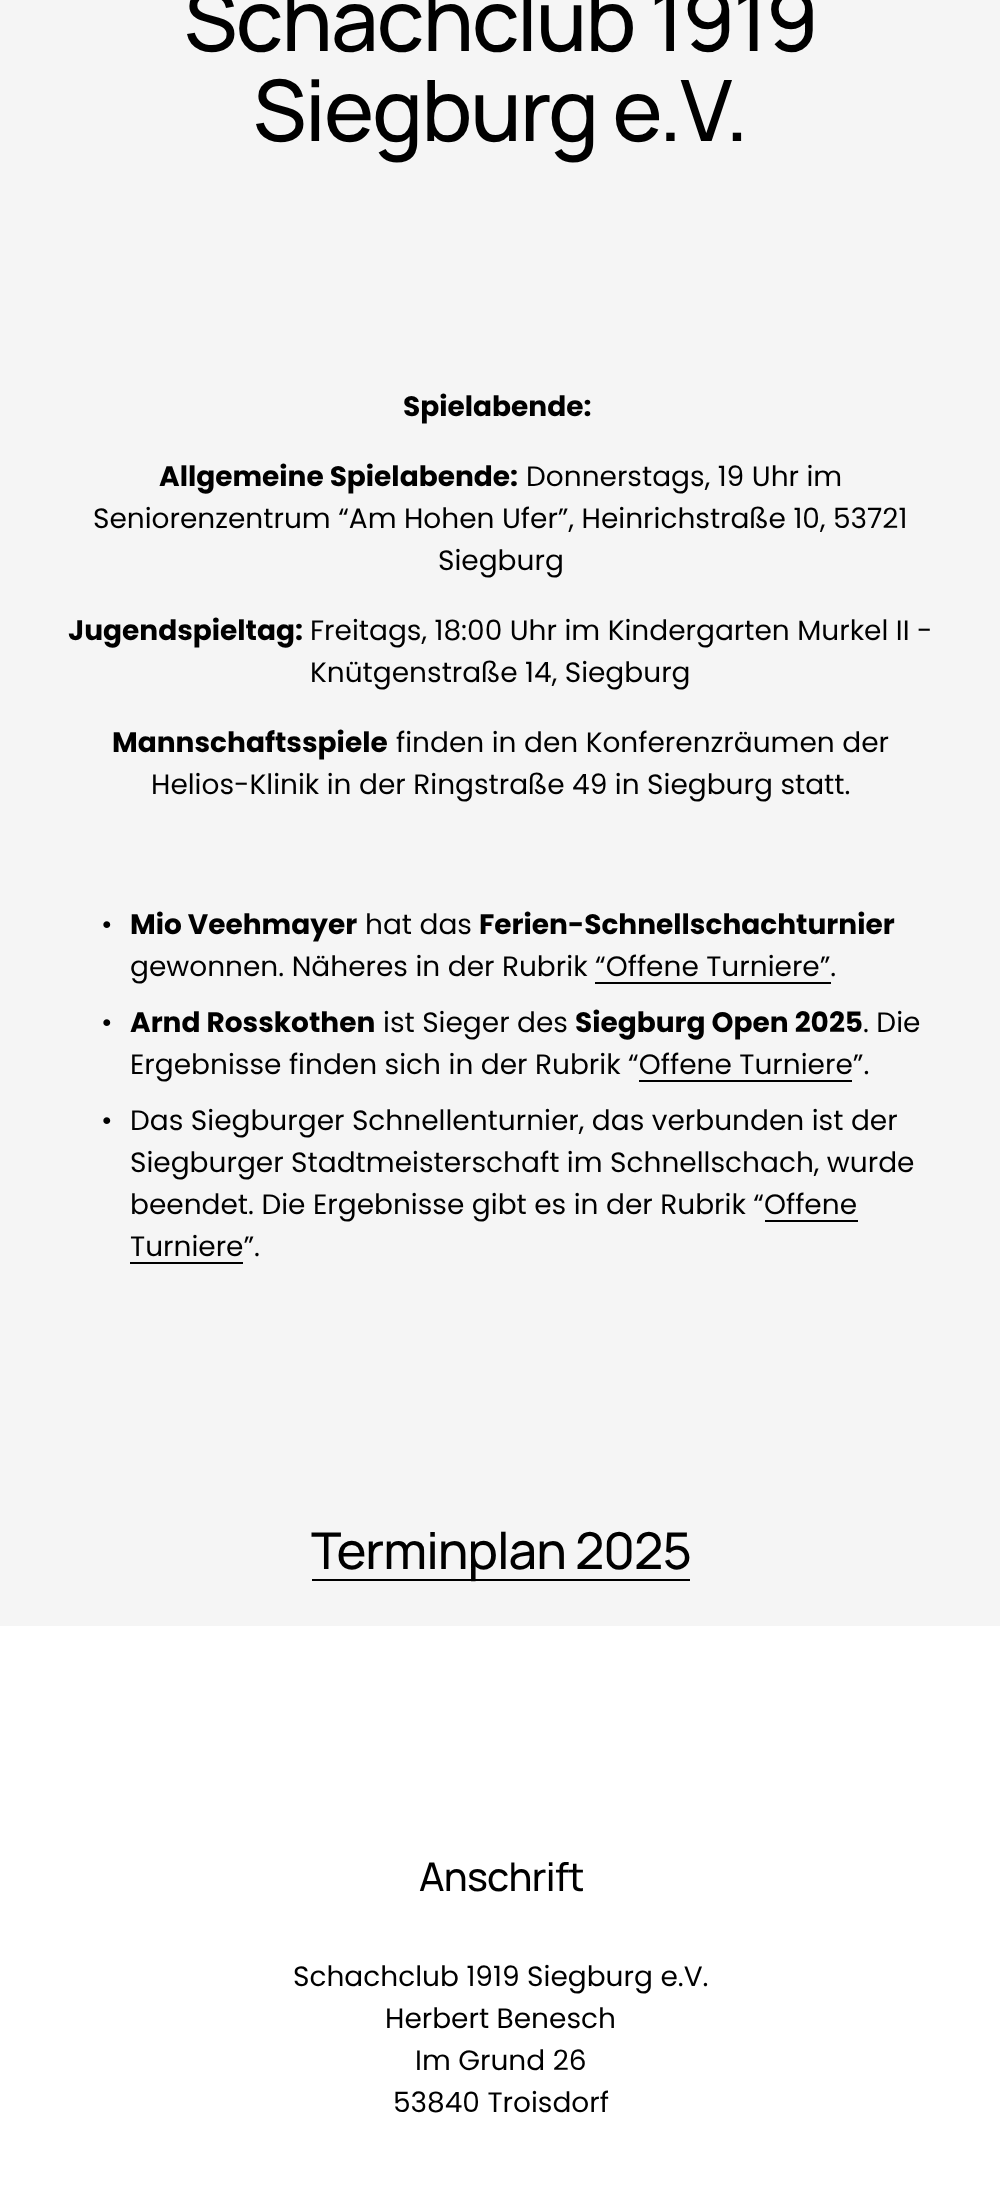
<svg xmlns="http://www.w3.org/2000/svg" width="1000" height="2189">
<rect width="100%" height="100%" fill="#fff"/>
<rect width="1000" height="1626" fill="#f5f5f5"/>
<text x="184" y="51" style="font-family:Manrope;font-size:84.75px;font-weight:500;letter-spacing:-1.75px;fill:#000">Schachclub 1919</text>
<text x="253" y="141" style="font-family:Manrope;font-size:84.75px;font-weight:500;letter-spacing:-1.75px;fill:#000">Siegburg e.V.</text>
<text x="403" y="416" style="font-family:Poppins;font-size:28px;font-weight:bold;fill:#000">Spielabende:</text>
<text x="159" y="486" style="font-family:Poppins;font-size:28px;font-weight:bold;fill:#000">Allgemeine Spielabende:</text>
<text x="526" y="486" style="font-family:Poppins;font-size:28px;fill:#000">Donnerstags, 19 Uhr im</text>
<text x="93" y="528" style="font-family:Poppins;font-size:28px;fill:#000">Seniorenzentrum “Am Hohen Ufer”, Heinrichstraße 10, 53721</text>
<text x="438" y="570" style="font-family:Poppins;font-size:28px;fill:#000">Siegburg</text>
<text x="68" y="640" style="font-family:Poppins;font-size:28px;font-weight:bold;fill:#000">Jugendspieltag:</text>
<text x="310" y="640" style="font-family:Poppins;font-size:28px;fill:#000">Freitags, 18:00 Uhr im Kindergarten Murkel II -</text>
<text x="310" y="682" style="font-family:Poppins;font-size:28px;fill:#000">Knütgenstraße 14, Siegburg</text>
<text x="112" y="752" style="font-family:Poppins;font-size:28px;font-weight:bold;fill:#000">Mannschaftsspiele</text>
<text x="396" y="752" style="font-family:Poppins;font-size:28px;fill:#000">finden in den Konferenzräumen der</text>
<text x="151" y="794" style="font-family:Poppins;font-size:28px;fill:#000">Helios-Klinik in der Ringstraße 49 in Siegburg statt.</text>
<text x="101" y="934" style="font-family:Poppins;font-size:28px;fill:#000">•</text>
<text x="130" y="934" style="font-family:Poppins;font-size:28px;font-weight:bold;fill:#000">Mio Veehmayer</text>
<text x="365" y="934" style="font-family:Poppins;font-size:28px;fill:#000">hat das</text>
<text x="479" y="934" style="font-family:Poppins;font-size:28px;font-weight:bold;fill:#000">Ferien-Schnellschachturnier</text>
<text x="130" y="976" style="font-family:Poppins;font-size:28px;fill:#000">gewonnen. Näheres in der Rubrik “Offene Turniere”.</text>
<rect x="595" y="982" width="236" height="2" fill="#000"/>
<text x="101" y="1032" style="font-family:Poppins;font-size:28px;fill:#000">•</text>
<text x="130" y="1032" style="font-family:Poppins;font-size:28px;font-weight:bold;fill:#000">Arnd Rosskothen</text>
<text x="383" y="1032" style="font-family:Poppins;font-size:28px;fill:#000">ist Sieger des</text>
<text x="575" y="1032" style="font-family:Poppins;font-size:28px;font-weight:bold;fill:#000">Siegburg Open 2025</text>
<text x="863" y="1032" style="font-family:Poppins;font-size:28px;fill:#000">. Die</text>
<text x="130" y="1074" style="font-family:Poppins;font-size:28px;fill:#000">Ergebnisse finden sich in der Rubrik “Offene Turniere”.</text>
<rect x="639" y="1080" width="213" height="2" fill="#000"/>
<text x="101" y="1130" style="font-family:Poppins;font-size:28px;fill:#000">•</text>
<text x="130" y="1130" style="font-family:Poppins;font-size:28px;fill:#000">Das Siegburger Schnellenturnier, das verbunden ist der</text>
<text x="130" y="1172" style="font-family:Poppins;font-size:28px;fill:#000">Siegburger Stadtmeisterschaft im Schnellschach, wurde</text>
<text x="130" y="1214" style="font-family:Poppins;font-size:28px;fill:#000">beendet. Die Ergebnisse gibt es in der Rubrik “Offene</text>
<text x="130" y="1256" style="font-family:Poppins;font-size:28px;fill:#000">Turniere”.</text>
<rect x="765" y="1220" width="93" height="2" fill="#000"/>
<rect x="130" y="1262" width="113" height="2" fill="#000"/>
<rect x="312" y="1579" width="378" height="2" fill="#000"/>
<text x="311" y="1569" style="font-family:Manrope;font-size:50.75px;font-weight:500;letter-spacing:-1px;fill:#000">Terminplan 2025</text>
<text x="419" y="1891" style="font-family:Manrope;font-size:39.5px;font-weight:500;letter-spacing:-0.75px;fill:#000">Anschrift</text>
<text x="293" y="1986" style="font-family:Poppins;font-size:28px;fill:#000">Schachclub 1919 Siegburg e.V.</text>
<text x="385" y="2028" style="font-family:Poppins;font-size:28px;fill:#000">Herbert Benesch</text>
<text x="415" y="2070" style="font-family:Poppins;font-size:28px;fill:#000">Im Grund 26</text>
<text x="393" y="2112" style="font-family:Poppins;font-size:28px;fill:#000">53840 Troisdorf</text>
</svg>
